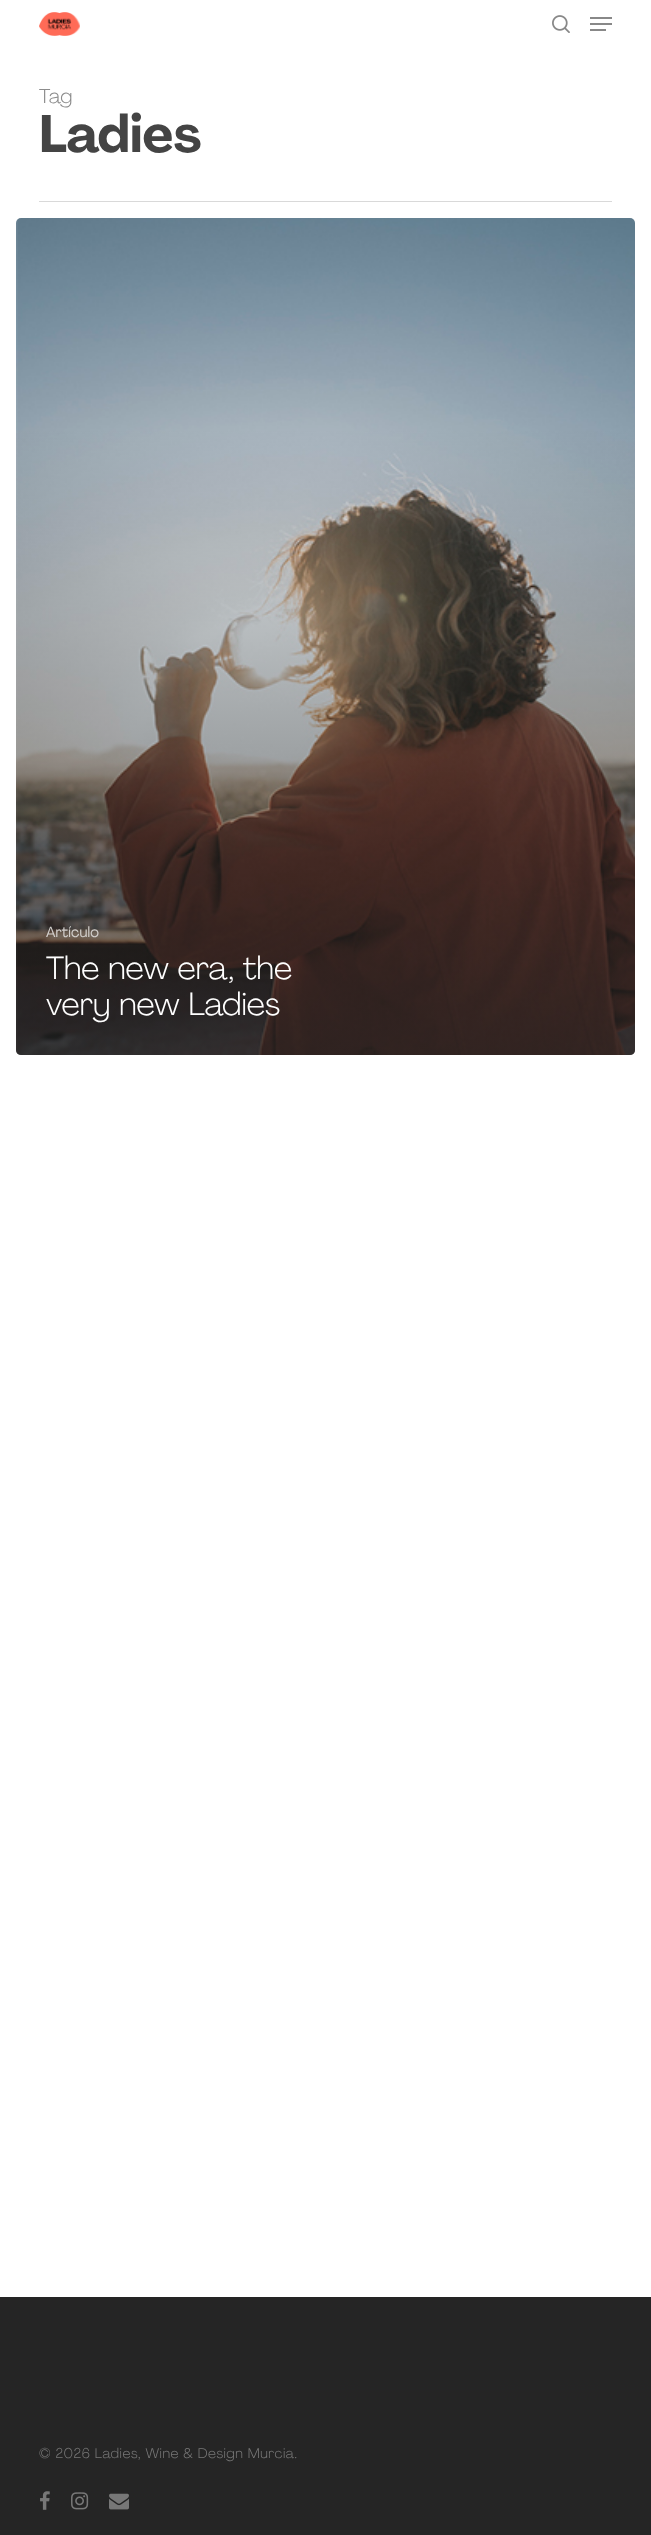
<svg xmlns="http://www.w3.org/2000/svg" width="651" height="2535">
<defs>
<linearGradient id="g1" gradientUnits="userSpaceOnUse" x1="327" y1="428" x2="327" y2="1059"><stop offset="0" stop-color="#232323" stop-opacity="0"/><stop offset="1" stop-color="#232323" stop-opacity="0.65"/></linearGradient>
</defs>
<rect width="100%" height="100%" fill="#fff"/>
<image x="39" y="12" width="41" height="24" href="media/1.png"/>
<image x="552" y="15" width="18" height="18" href="media/2.png"/>
<rect x="590" y="17" width="22" height="2" fill="#888"/>
<rect x="590" y="29" width="16" height="2" fill="#888"/>
<rect x="590" y="23" width="22" height="2" fill="#888"/>
<rect x="39" y="201" width="573" height="1" fill="#d9d9d9"/>
<text x="39" y="103" style="font-family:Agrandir;font-size:20px;font-weight:300;letter-spacing:0.5px;fill:#8c8c8c">Tag</text>
<text x="39" y="152" style="font-family:'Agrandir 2';font-size:52px;font-weight:bold;fill:#444">Ladies</text>
<image x="16" y="218" width="619" height="837" href="media/3.png"/>
<path d="M16 428h619v622c0 3-2 5-5 5h-609c-3 0-5-2-5-5z" fill="url(#g1)"/>
<text x="46" y="937" style="font-family:Agrandir;font-size:14px;font-weight:bold;letter-spacing:0.5px;fill:#d2cfcc">Artículo</text>
<text x="46" y="979" style="font-family:Agrandir;font-size:32px;font-weight:300;fill:#fff">The new era, the</text>
<text x="46" y="1015" style="font-family:Agrandir;font-size:32px;font-weight:300;fill:#fff">very new Ladies</text>
<rect y="2297" width="651" height="238" fill="#252525"/>
<text x="39" y="2458" style="font-family:Agrandir;font-size:14px;font-weight:300;letter-spacing:0.5px;fill:#777">© 2026 Ladies, Wine &amp; Design Murcia.</text>
<image x="40" y="2491" width="10" height="19" href="media/4.png"/>
<image x="71" y="2492" width="18" height="18" href="media/5.png"/>
<image x="109" y="2493" width="20" height="17" href="media/6.png"/>
</svg>
